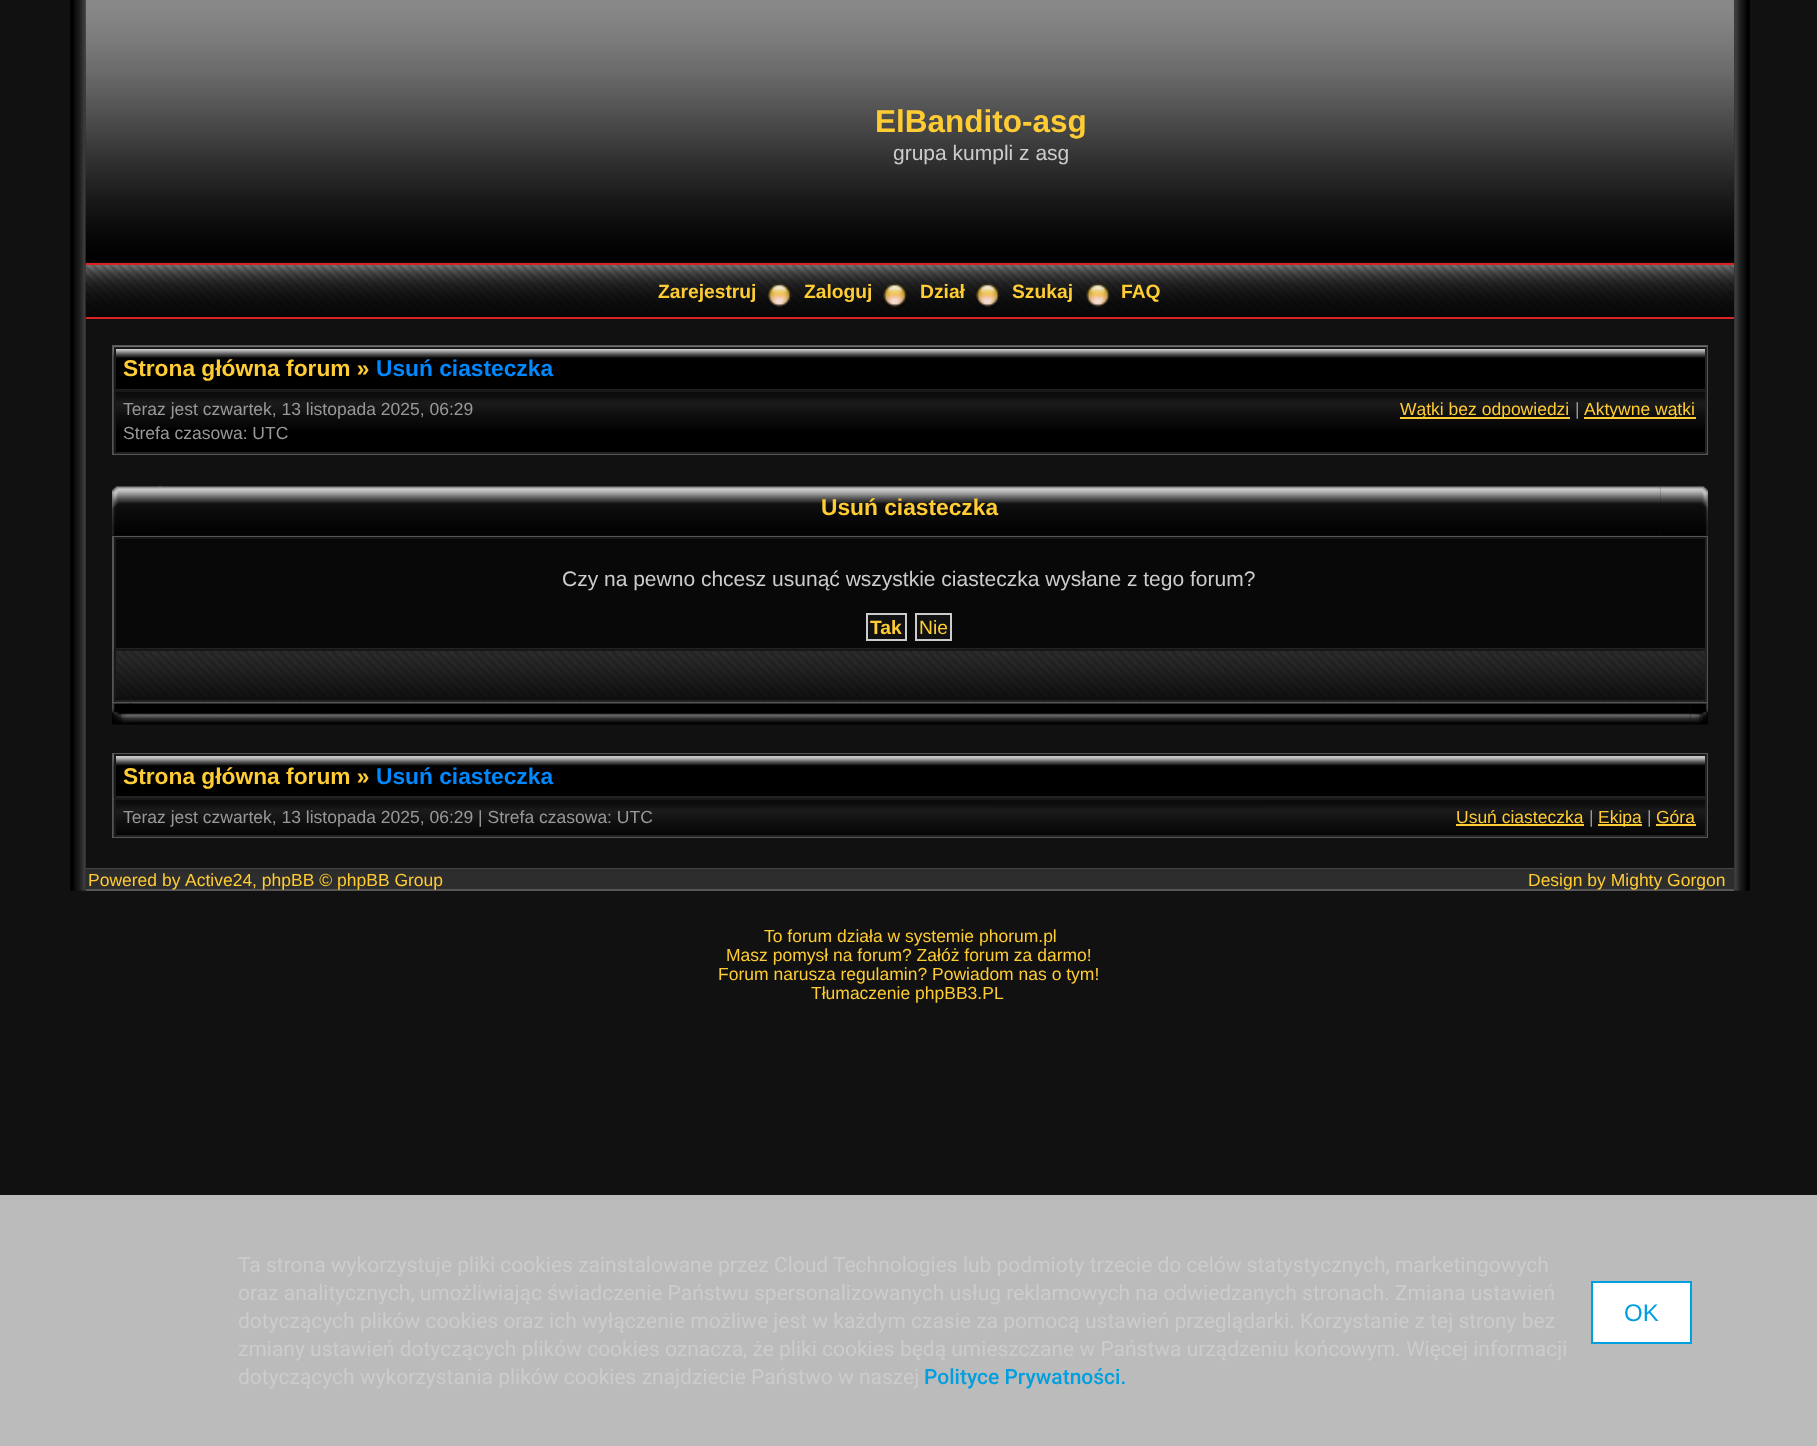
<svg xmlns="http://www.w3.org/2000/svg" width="1817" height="1446">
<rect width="100%" height="100%" fill="#111"/>
<image x="70" y="0" width="16" height="891" href="media/1.png"/>
<image x="85" y="0" width="1650" height="263" href="media/2.png"/>
<text x="875" y="132" style="font-family:Liberation Sans;font-size:31.5px;font-weight:bold;fill:#fc3">ElBandito-asg</text>
<text x="893" y="160" style="font-family:Liberation Sans;font-size:21px;fill:#ccc">grupa kumpli z asg</text>
<image x="85" y="264" width="1650" height="55" href="media/3.png"/>
<rect x="86" y="263" width="1648" height="2" fill="#d22"/>
<rect x="86" y="317" width="1648" height="2" fill="#d22"/>
<text x="658" y="298" style="font-family:Liberation Sans;font-size:19.25px;font-weight:bold;fill:#fc3">Zarejestruj</text>
<image x="767" y="283" width="25" height="24" href="media/4.png"/>
<text x="804" y="298" style="font-family:Liberation Sans;font-size:19.25px;font-weight:bold;fill:#fc3">Zaloguj</text>
<image x="883" y="283" width="24" height="24" href="media/5.png"/>
<text x="920" y="298" style="font-family:Liberation Sans;font-size:19.25px;font-weight:bold;fill:#fc3">Dział</text>
<image x="976" y="283" width="24" height="24" href="media/6.png"/>
<text x="1012" y="298" style="font-family:Liberation Sans;font-size:19.25px;font-weight:bold;fill:#fc3">Szukaj</text>
<image x="1086" y="283" width="24" height="24" href="media/7.png"/>
<text x="1121" y="298" style="font-family:Liberation Sans;font-size:19.25px;font-weight:bold;fill:#fc3">FAQ</text>
<rect x="113" y="346" width="1594" height="108" fill="none" stroke="#555" stroke-width="2"/>
<image x="113" y="346" width="1594" height="45" href="media/8.png"/>
<rect x="114" y="347" width="1592" height="2" fill="#181818"/>
<rect x="1705" y="347" width="2" height="43" fill="#222"/>
<rect x="114" y="389" width="1592" height="1" fill="#222"/>
<rect x="114" y="347" width="2" height="43" fill="#181818"/>
<text x="123" y="376" style="font-family:Liberation Sans;font-size:22.75px;font-weight:bold;fill:#fc3">Strona główna forum »</text>
<text x="376" y="376" style="font-family:Liberation Sans;font-size:22.75px;font-weight:bold;fill:#08f">Usuń ciasteczka</text>
<image x="113" y="392" width="1594" height="62" href="media/9.png"/>
<rect x="114" y="390" width="1592" height="2" fill="#181818"/>
<rect x="1705" y="390" width="2" height="63" fill="#222"/>
<rect x="114" y="452" width="1592" height="2" fill="#222"/>
<rect x="114" y="390" width="2" height="63" fill="#181818"/>
<text x="123" y="415" style="font-family:Liberation Sans;font-size:17.5px;fill:#999">Teraz jest czwartek, 13 listopada 2025, 06:29</text>
<text x="123" y="439" style="font-family:Liberation Sans;font-size:17.5px;fill:#999">Strefa czasowa: UTC</text>
<rect x="1400" y="417" width="170" height="2" fill="#fc3"/>
<text x="1400" y="415" style="font-family:Liberation Sans;font-size:17.5px;fill:#fc3">Wątki bez odpowiedzi</text>
<text x="1575" y="415" style="font-family:Liberation Sans;font-size:17.5px;fill:#999">|</text>
<rect x="1584" y="417" width="112" height="2" fill="#fc3"/>
<text x="1584" y="415" style="font-family:Liberation Sans;font-size:17.5px;fill:#fc3">Aktywne wątki</text>
<image x="112" y="486" width="49" height="50" href="media/10.png"/>
<image x="1660" y="486" width="48" height="50" href="media/11.png"/>
<image x="159" y="486" width="1502" height="50" href="media/12.png"/>
<text x="821" y="515" style="font-family:Liberation Sans;font-size:22.75px;font-weight:bold;fill:#fc3">Usuń ciasteczka</text>
<rect x="113" y="537" width="1594" height="166" fill="none" stroke="#555" stroke-width="2"/>
<rect x="116" y="539" width="1589" height="109" fill="#080808"/>
<rect x="114" y="537" width="1592" height="2" fill="#181818"/>
<rect x="1705" y="537" width="2" height="112" fill="#222"/>
<rect x="114" y="648" width="1592" height="1" fill="#222"/>
<rect x="114" y="537" width="2" height="112" fill="#181818"/>
<text x="562" y="586" style="font-family:Liberation Sans;font-size:21px;fill:#ccc">Czy na pewno chcesz usunąć wszystkie ciasteczka wysłane z tego forum?</text>
<rect x="867" y="614" width="39" height="26" fill="#111" stroke="#ccc" stroke-width="2"/>
<text x="870" y="634" style="font-family:Liberation Sans;font-size:19.25px;font-weight:bold;fill:#fc3">Tak</text>
<rect x="916" y="614" width="35" height="26" fill="#111" stroke="#ccc" stroke-width="2"/>
<text x="919" y="634" style="font-family:Liberation Sans;font-size:19.25px;fill:#fc3">Nie</text>
<image x="113" y="651" width="1592" height="51" href="media/13.png"/>
<rect x="114" y="649" width="1592" height="2" fill="#181818"/>
<rect x="1705" y="649" width="2" height="53" fill="#222"/>
<rect x="114" y="700" width="1592" height="2" fill="#222"/>
<rect x="114" y="649" width="2" height="53" fill="#181818"/>
<image x="112" y="703" width="20" height="22" href="media/14.png"/>
<image x="1690" y="703" width="18" height="22" href="media/15.png"/>
<image x="129" y="703" width="1562" height="22" href="media/16.png"/>
<rect x="113" y="754" width="1594" height="83" fill="none" stroke="#555" stroke-width="2"/>
<image x="113" y="754" width="1592" height="44" href="media/17.png"/>
<rect x="114" y="754" width="1592" height="2" fill="#181818"/>
<rect x="1705" y="754" width="2" height="44" fill="#222"/>
<rect x="114" y="796" width="1592" height="2" fill="#222"/>
<rect x="114" y="754" width="2" height="44" fill="#181818"/>
<text x="123" y="784" style="font-family:Liberation Sans;font-size:22.75px;font-weight:bold;fill:#fc3">Strona główna forum »</text>
<text x="376" y="784" style="font-family:Liberation Sans;font-size:22.75px;font-weight:bold;fill:#08f">Usuń ciasteczka</text>
<image x="113" y="799" width="1592" height="38" href="media/18.png"/>
<rect x="114" y="798" width="1592" height="2" fill="#181818"/>
<rect x="1705" y="798" width="2" height="39" fill="#222"/>
<rect x="114" y="835" width="1592" height="2" fill="#222"/>
<rect x="114" y="798" width="2" height="39" fill="#181818"/>
<text x="123" y="823" style="font-family:Liberation Sans;font-size:17.5px;fill:#999">Teraz jest czwartek, 13 listopada 2025, 06:29 | Strefa czasowa: UTC</text>
<text x="1456" y="823" style="font-family:Liberation Sans;font-size:17.5px;fill:#fc3">Usuń ciasteczka</text>
<rect x="1456" y="824" width="128" height="2" fill="#fc3"/>
<text x="1589" y="823" style="font-family:Liberation Sans;font-size:17.5px;fill:#999">|</text>
<rect x="1598" y="824" width="44" height="2" fill="#fc3"/>
<text x="1598" y="823" style="font-family:Liberation Sans;font-size:17.5px;fill:#fc3">Ekipa</text>
<text x="1647" y="823" style="font-family:Liberation Sans;font-size:17.5px;fill:#999">|</text>
<text x="1656" y="823" style="font-family:Liberation Sans;font-size:17.5px;fill:#fc3">Góra</text>
<rect x="1656" y="824" width="40" height="2" fill="#fc3"/>
<rect x="86" y="868" width="1648" height="1" fill="#444"/>
<rect x="86" y="889" width="1648" height="2" fill="#555"/>
<rect x="86" y="869" width="1649" height="20" fill="#2d2d2d"/>
<text x="88" y="886" style="font-family:Liberation Sans;font-size:17.5px;fill:#fc3">Powered by</text>
<text x="185" y="886" style="font-family:Liberation Sans;font-size:17.5px;fill:#fc3">Active24, phpBB © phpBB Group</text>
<text x="1528" y="886" style="font-family:Liberation Sans;font-size:17.5px;fill:#fc3">Design by Mighty Gorgon</text>
<image x="1734" y="0" width="16" height="891" href="media/19.png"/>
<text x="764" y="942" style="font-family:Liberation Sans;font-size:17.5px;fill:#fc3">To forum działa w systemie phorum.pl</text>
<text x="726" y="961" style="font-family:Liberation Sans;font-size:17.5px;fill:#fc3">Masz pomysł na forum? Załóż forum za darmo!</text>
<text x="718" y="980" style="font-family:Liberation Sans;font-size:17.5px;fill:#fc3">Forum narusza regulamin? Powiadom nas o tym!</text>
<text x="811" y="999" style="font-family:Liberation Sans;font-size:17.5px;fill:#fc3">Tłumaczenie phpBB3.PL</text>
<rect y="1195" width="1817" height="251" fill="#bbb"/>
<text x="238" y="1272" style="font-family:Roboto;font-size:21px;fill:#ccc">Ta strona wykorzystuje pliki cookies zainstalowane przez Cloud Technologies lub podmioty trzecie do celów statystycznych, marketingowych</text>
<text x="238" y="1300" style="font-family:Roboto;font-size:21px;fill:#ccc">oraz analitycznych, umożliwiając świadczenie Państwu spersonalizowanych usług reklamowych na odwiedzanych stronach. Zmiana ustawień</text>
<text x="238" y="1328" style="font-family:Roboto;font-size:21px;fill:#ccc">dotyczących plików cookies oraz ich wyłączenie możliwe jest w każdym czasie za pomocą ustawień przeglądarki. Korzystanie z tej strony bez</text>
<text x="238" y="1356" style="font-family:Roboto;font-size:21px;fill:#ccc">zmiany ustawień dotyczących plików cookies oznacza, że pliki cookies będą umieszczane w Państwa urządzeniu końcowym. Więcej informacji</text>
<text x="238" y="1384" style="font-family:Roboto;font-size:21px;fill:#ccc">dotyczących wykorzystania plików cookies znajdziecie Państwo w naszej</text>
<text x="924" y="1384" style="font-family:Roboto;font-size:21px;font-weight:500;fill:#009fdf">Polityce Prywatności.</text>
<rect x="1592" y="1282" width="99" height="61" fill="#fff" stroke="#009fdf" stroke-width="2"/>
<text x="1624" y="1321" style="font-family:Liberation Sans;font-size:24px;fill:#009fdf">OK</text>
</svg>
